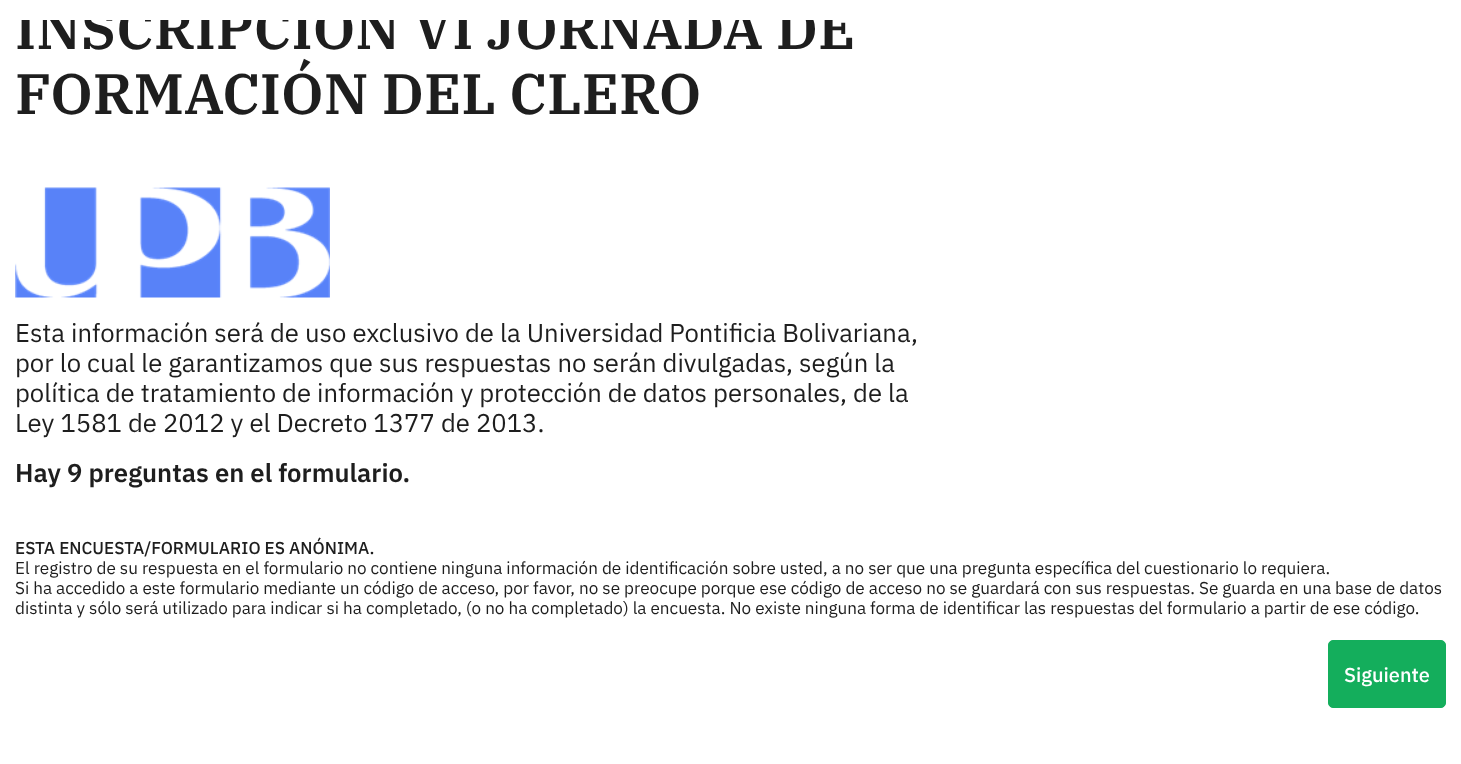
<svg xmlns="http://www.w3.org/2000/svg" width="1461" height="764">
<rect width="100%" height="100%" fill="#fff"/>
<text x="15" y="49" style="font-family:IBM Plex Serif;font-size:57px;font-weight:600;fill:#1e1e1e">INSCRIPCIÓN VI JORNADA DE</text>
<text x="15" y="114" style="font-family:IBM Plex Serif;font-size:57px;font-weight:600;fill:#1e1e1e">FORMACIÓN DEL CLERO</text>
<image x="15" y="187" width="315" height="111" href="media/1.png"/>
<text x="15" y="342" style="font-family:IBM Plex Sans;font-size:25.65px;fill:#1e1e1e">Esta información será de uso exclusivo de la Universidad Pontificia Bolivariana,</text>
<text x="15" y="372" style="font-family:IBM Plex Sans;font-size:25.65px;fill:#1e1e1e">por lo cual le garantizamos que sus respuestas no serán divulgadas, según la</text>
<text x="15" y="402" style="font-family:IBM Plex Sans;font-size:25.65px;fill:#1e1e1e">política de tratamiento de información y protección de datos personales, de la</text>
<text x="15" y="432" style="font-family:IBM Plex Sans;font-size:25.65px;fill:#1e1e1e">Ley 1581 de 2012 y el Decreto 1377 de 2013.</text>
<text x="15" y="482" style="font-family:IBM Plex Sans;font-size:25.65px;font-weight:600;fill:#1e1e1e">Hay 9 preguntas en el formulario.</text>
<text x="15" y="554" style="font-family:IBM Plex Sans;font-size:17.1px;font-weight:500;fill:#1e1e1e">ESTA ENCUESTA/FORMULARIO ES ANÓNIMA.</text>
<text x="15" y="574" style="font-family:IBM Plex Sans;font-size:17.1px;fill:#1e1e1e">El registro de su respuesta en el formulario no contiene ninguna información de identificación sobre usted, a no ser que una pregunta específica del cuestionario lo requiera.</text>
<text x="15" y="594" style="font-family:IBM Plex Sans;font-size:17.1px;fill:#1e1e1e">Si ha accedido a este formulario mediante un código de acceso, por favor, no se preocupe porque ese código de acceso no se guardará con sus respuestas. Se guarda en una base de datos</text>
<text x="15" y="614" style="font-family:IBM Plex Sans;font-size:17.1px;fill:#1e1e1e">distinta y sólo será utilizado para indicar si ha completado, (o no ha completado) la encuesta. No existe ninguna forma de identificar las respuestas del formulario a partir de ese código.</text>
<rect x="1328.5" y="640.5" width="117" height="67" rx="4.5" fill="#14ae5c" stroke="#14ae5c"/>
<text x="1344" y="682" style="font-family:IBM Plex Sans;font-size:20px;font-weight:500;fill:#fff">Siguiente</text>
<rect x="17" width="835" height="20" fill="#fff"/>
</svg>
